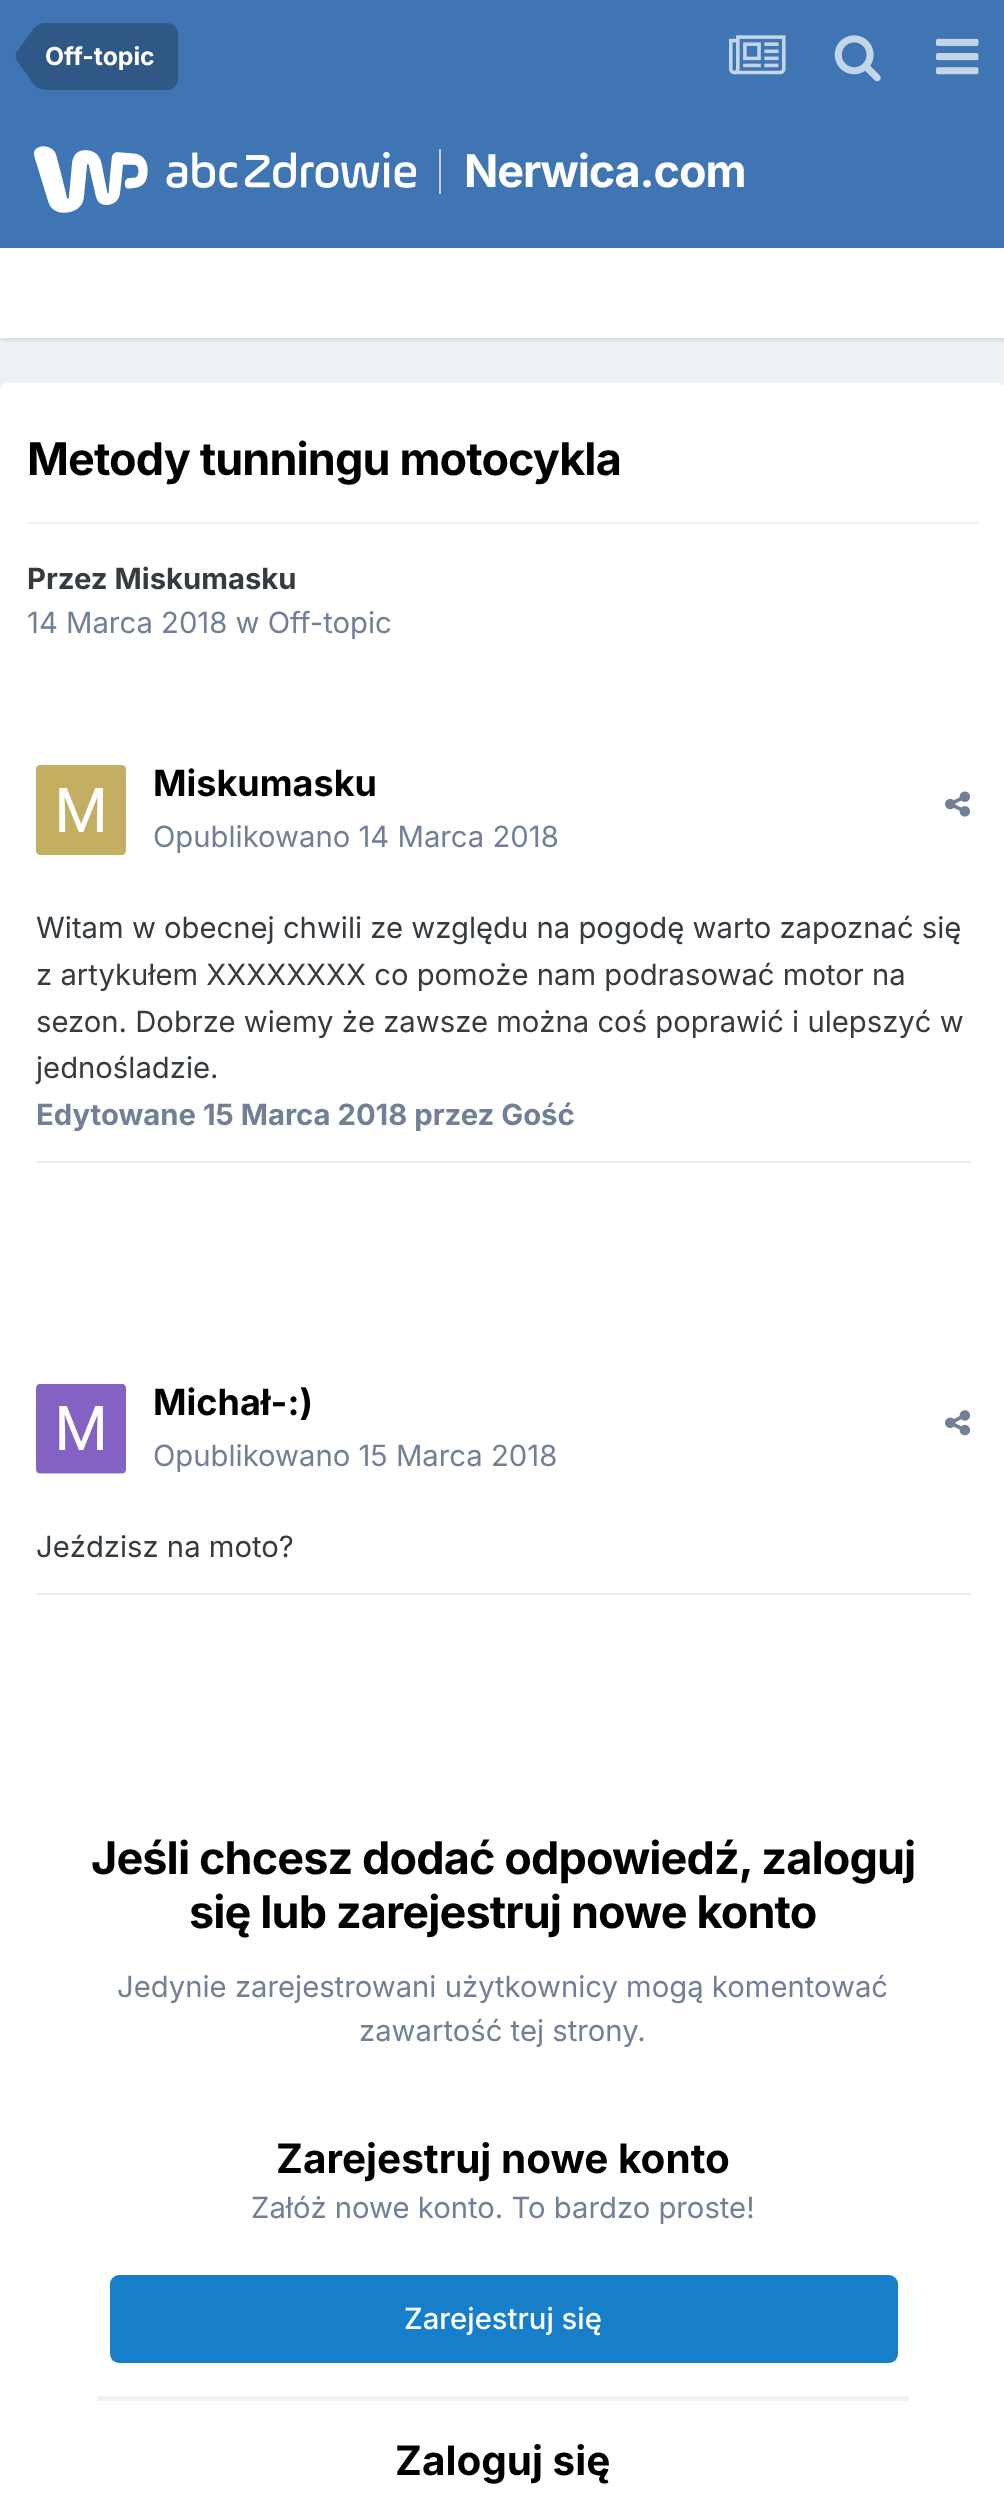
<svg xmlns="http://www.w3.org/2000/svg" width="1004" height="2504">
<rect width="100%" height="100%" fill="#edf0f4"/>
<rect width="1004" height="248" fill="#4075b3"/>
<path d="M45 23h122c6 0 11 5 11 11v45c0 6-5 11-11 11h-122z" fill="#305886"/>
<path d="M16.5 60l-1-4h29.5v33.5c-5 0-9.5-2.5-13-7.5z" fill="#305886"/>
<path d="M45 23v33h-29.5l.5-3l8.5-12l7.5-10c3.5-5.5 8-8 13-8z" fill="#305886"/>
<text x="45" y="65" style="font-family:Inter;font-size:24.75px;font-weight:bold;fill:#fff">Off-topic</text>
<image x="729" y="35" width="57" height="40" href="media/1.png"/>
<image x="834" y="35" width="47" height="47" href="media/2.png"/>
<image x="936" y="38" width="43" height="37" href="media/3.png"/>
<image x="34" y="146" width="382" height="67" href="media/4.png"/>
<rect x="439" y="149" width="2" height="45" fill="#ccc"/>
<text x="464" y="187" style="font-family:Inter;font-size:45px;font-weight:bold;letter-spacing:-1.1px;fill:#fff">Nerwica.com</text>
<rect y="250" width="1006" height="90" fill="#0000001a" filter="blur(2px)"/>
<rect y="248" width="1004" height="90" fill="#fff"/>
<rect y="383" width="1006" height="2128" rx="7" fill="#fff"/>
<text x="27" y="475" style="font-family:Inter;font-size:45px;font-weight:bold;letter-spacing:-0.9px;fill:#000">Metody tunningu motocykla</text>
<rect x="27" y="522" width="952" height="2" fill="#efeff0"/>
<text x="27" y="589" style="font-family:Inter;font-size:29.25px;font-weight:bold;fill:#353c41">Przez Miskumasku</text>
<text x="27" y="633" style="font-family:Inter;font-size:29.25px;fill:#718096">14 Marca 2018 w Off-topic</text>
<image x="36" y="765" width="90" height="90" href="media/5.png"/>
<text x="153" y="796" style="font-family:Inter;font-size:36px;font-weight:bold;fill:#000">Miskumasku</text>
<text x="153" y="847" style="font-family:Inter;font-size:29.25px;fill:#718096">Opublikowano 14 Marca 2018</text>
<image x="945" y="791" width="26" height="26" href="media/6.png"/>
<text x="36" y="938" style="font-family:Inter;font-size:29.25px;fill:#353c41">Witam w obecnej chwili ze względu na pogodę warto zapoznać się</text>
<text x="36" y="985" style="font-family:Inter;font-size:29.25px;fill:#353c41">z artykułem XXXXXXXX co pomoże nam podrasować motor na</text>
<text x="36" y="1032" style="font-family:Inter;font-size:29.25px;fill:#353c41">sezon. Dobrze wiemy że zawsze można coś poprawić i ulepszyć w</text>
<text x="36" y="1078" style="font-family:Inter;font-size:29.25px;fill:#353c41">jednośladzie.</text>
<text x="36" y="1125" style="font-family:Inter;font-size:29.25px;font-weight:bold;fill:#718096">Edytowane 15 Marca 2018 przez Gość</text>
<rect x="36" y="1161" width="934" height="2" fill="#ebecec"/>
<image x="36" y="1384" width="90" height="90" href="media/7.png"/>
<text x="153" y="1415" style="font-family:Inter;font-size:36px;font-weight:bold;fill:#000">Michał-:)</text>
<text x="153" y="1466" style="font-family:Inter;font-size:29.25px;fill:#718096">Opublikowano 15 Marca 2018</text>
<image x="945" y="1410" width="26" height="26" href="media/8.png"/>
<text x="36" y="1557" style="font-family:Inter;font-size:29.25px;fill:#353c41">Jeździsz na moto?</text>
<rect x="36" y="1593" width="934" height="2" fill="#ebecec"/>
<text x="91" y="1874" style="font-family:Inter;font-size:45px;font-weight:bold;letter-spacing:-0.9px;fill:#000">Jeśli chcesz dodać odpowiedź, zaloguj</text>
<text x="189" y="1928" style="font-family:Inter;font-size:45px;font-weight:bold;letter-spacing:-0.9px;fill:#000">się lub zarejestruj nowe konto</text>
<text x="117" y="1997" style="font-family:Inter;font-size:29.25px;fill:#718096">Jedynie zarejestrowani użytkownicy mogą komentować</text>
<text x="359" y="2041" style="font-family:Inter;font-size:29.25px;fill:#718096">zawartość tej strony.</text>
<rect x="97" y="2396" width="812" height="5" fill="#f2f2f2"/>
<text x="276" y="2173" style="font-family:Inter;font-size:40.5px;font-weight:bold;fill:#000">Zarejestruj nowe konto</text>
<text x="251" y="2218" style="font-family:Inter;font-size:29.25px;fill:#718096">Załóż nowe konto. To bardzo proste!</text>
<rect x="110" y="2275" width="788" height="88" rx="9" fill="#177ec9"/>
<text x="404" y="2329" style="font-family:Inter;font-size:29.25px;font-weight:500;fill:#fff">Zarejestruj się</text>
<text x="395" y="2475" style="font-family:Inter;font-size:40.5px;font-weight:bold;fill:#000">Zaloguj się</text>
</svg>
